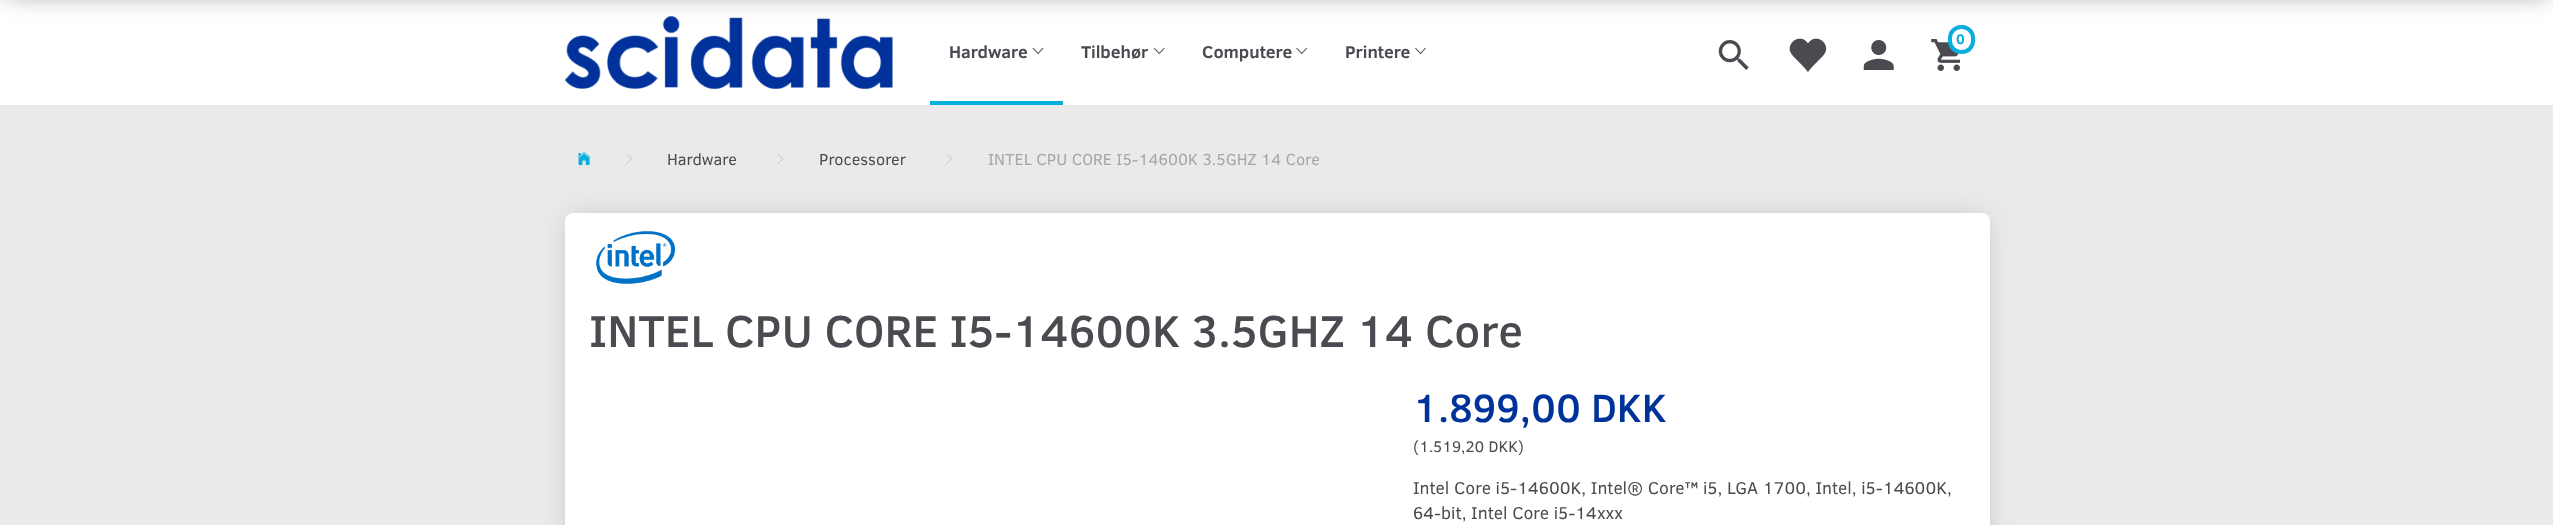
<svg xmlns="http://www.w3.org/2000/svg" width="2553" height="525">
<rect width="100%" height="100%" fill="#eaeaea"/>
<rect width="2553" height="105" fill="#fff"/>
<image x="565" y="16" width="328" height="73" href="media/1.png"/>
<image x="1931" y="39" width="29" height="32" href="media/5.png"/>
<rect x="1950" y="27" width="23" height="25" rx="11" fill="#fff" stroke="#04aede" stroke-width="4"/>
<rect x="6" y="-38" width="2542" height="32" fill="#949494" filter="blur(12.5px)"/>
<image x="1718" y="40" width="31" height="30" href="media/2.png"/>
<image x="1789" y="38" width="38" height="34" href="media/3.png"/>
<image x="1863" y="40" width="31" height="30" href="media/4.png"/>
<text x="1956" y="44" style="font-family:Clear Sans;font-size:14px;font-weight:bold;fill:#04aede">0</text>
<rect x="930" y="101" width="133" height="4" fill="#04aede"/>
<text x="949" y="58" style="font-family:Clear Sans;font-size:17.5px;font-weight:bold;fill:#4b4a50">Hardware</text>
<image x="1032" y="47" width="12" height="8" href="media/6.png"/>
<text x="1081" y="58" style="font-family:Clear Sans;font-size:17.5px;font-weight:bold;fill:#4b4a50">Tilbehør</text>
<image x="1153" y="47" width="12" height="8" href="media/7.png"/>
<text x="1202" y="58" style="font-family:Clear Sans;font-size:17.5px;font-weight:bold;fill:#4b4a50">Computere</text>
<image x="1296" y="47" width="12" height="8" href="media/8.png"/>
<text x="1345" y="58" style="font-family:Clear Sans;font-size:17.5px;font-weight:bold;fill:#4b4a50">Printere</text>
<image x="1415" y="47" width="11" height="8" href="media/9.png"/>
<image x="577" y="152" width="14" height="13" href="media/10.png"/>
<image x="626" y="154" width="6" height="10" href="media/11.png"/>
<text x="667" y="165" style="font-family:Clear Sans;font-size:16.25px;fill:#4b4a50">Hardware</text>
<image x="777" y="154" width="7" height="10" href="media/12.png"/>
<text x="819" y="165" style="font-family:Clear Sans;font-size:16.25px;fill:#4b4a50">Processorer</text>
<image x="946" y="154" width="6" height="10" href="media/11.png"/>
<text x="988" y="165" style="font-family:Clear Sans;font-size:16.25px;fill:#a6a6a6">INTEL CPU CORE I5-14600K 3.5GHZ 14 Core</text>
<rect x="571" y="219" width="1413" height="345" rx="1" fill="#b8b8b8" filter="blur(12.5px)"/>
<rect x="565" y="213" width="1425" height="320" rx="8" fill="#fff"/>
<image x="596" y="231" width="79" height="53" href="media/13.png"/>
<text x="589" y="347" style="font-family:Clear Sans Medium;font-size:45.5px;font-weight:500;fill:#4b4a50">INTEL CPU CORE I5-14600K 3.5GHZ 14 Core</text>
<text x="1413" y="422" style="font-family:Clear Sans Medium;font-size:40.25px;font-weight:500;fill:#039">1.899,00 DKK</text>
<text x="1413" y="452" style="font-family:Clear Sans;font-size:15.75px;fill:#4b4a50">(1.519,20 DKK)</text>
<text x="1413" y="494" style="font-family:Clear Sans;font-size:17.5px;fill:#4b4a50">Intel Core i5-14600K, Intel® Core™ i5, LGA 1700, Intel, i5-14600K,</text>
<text x="1413" y="519" style="font-family:Clear Sans;font-size:17.5px;fill:#4b4a50">64-bit, Intel Core i5-14xxx</text>
</svg>
